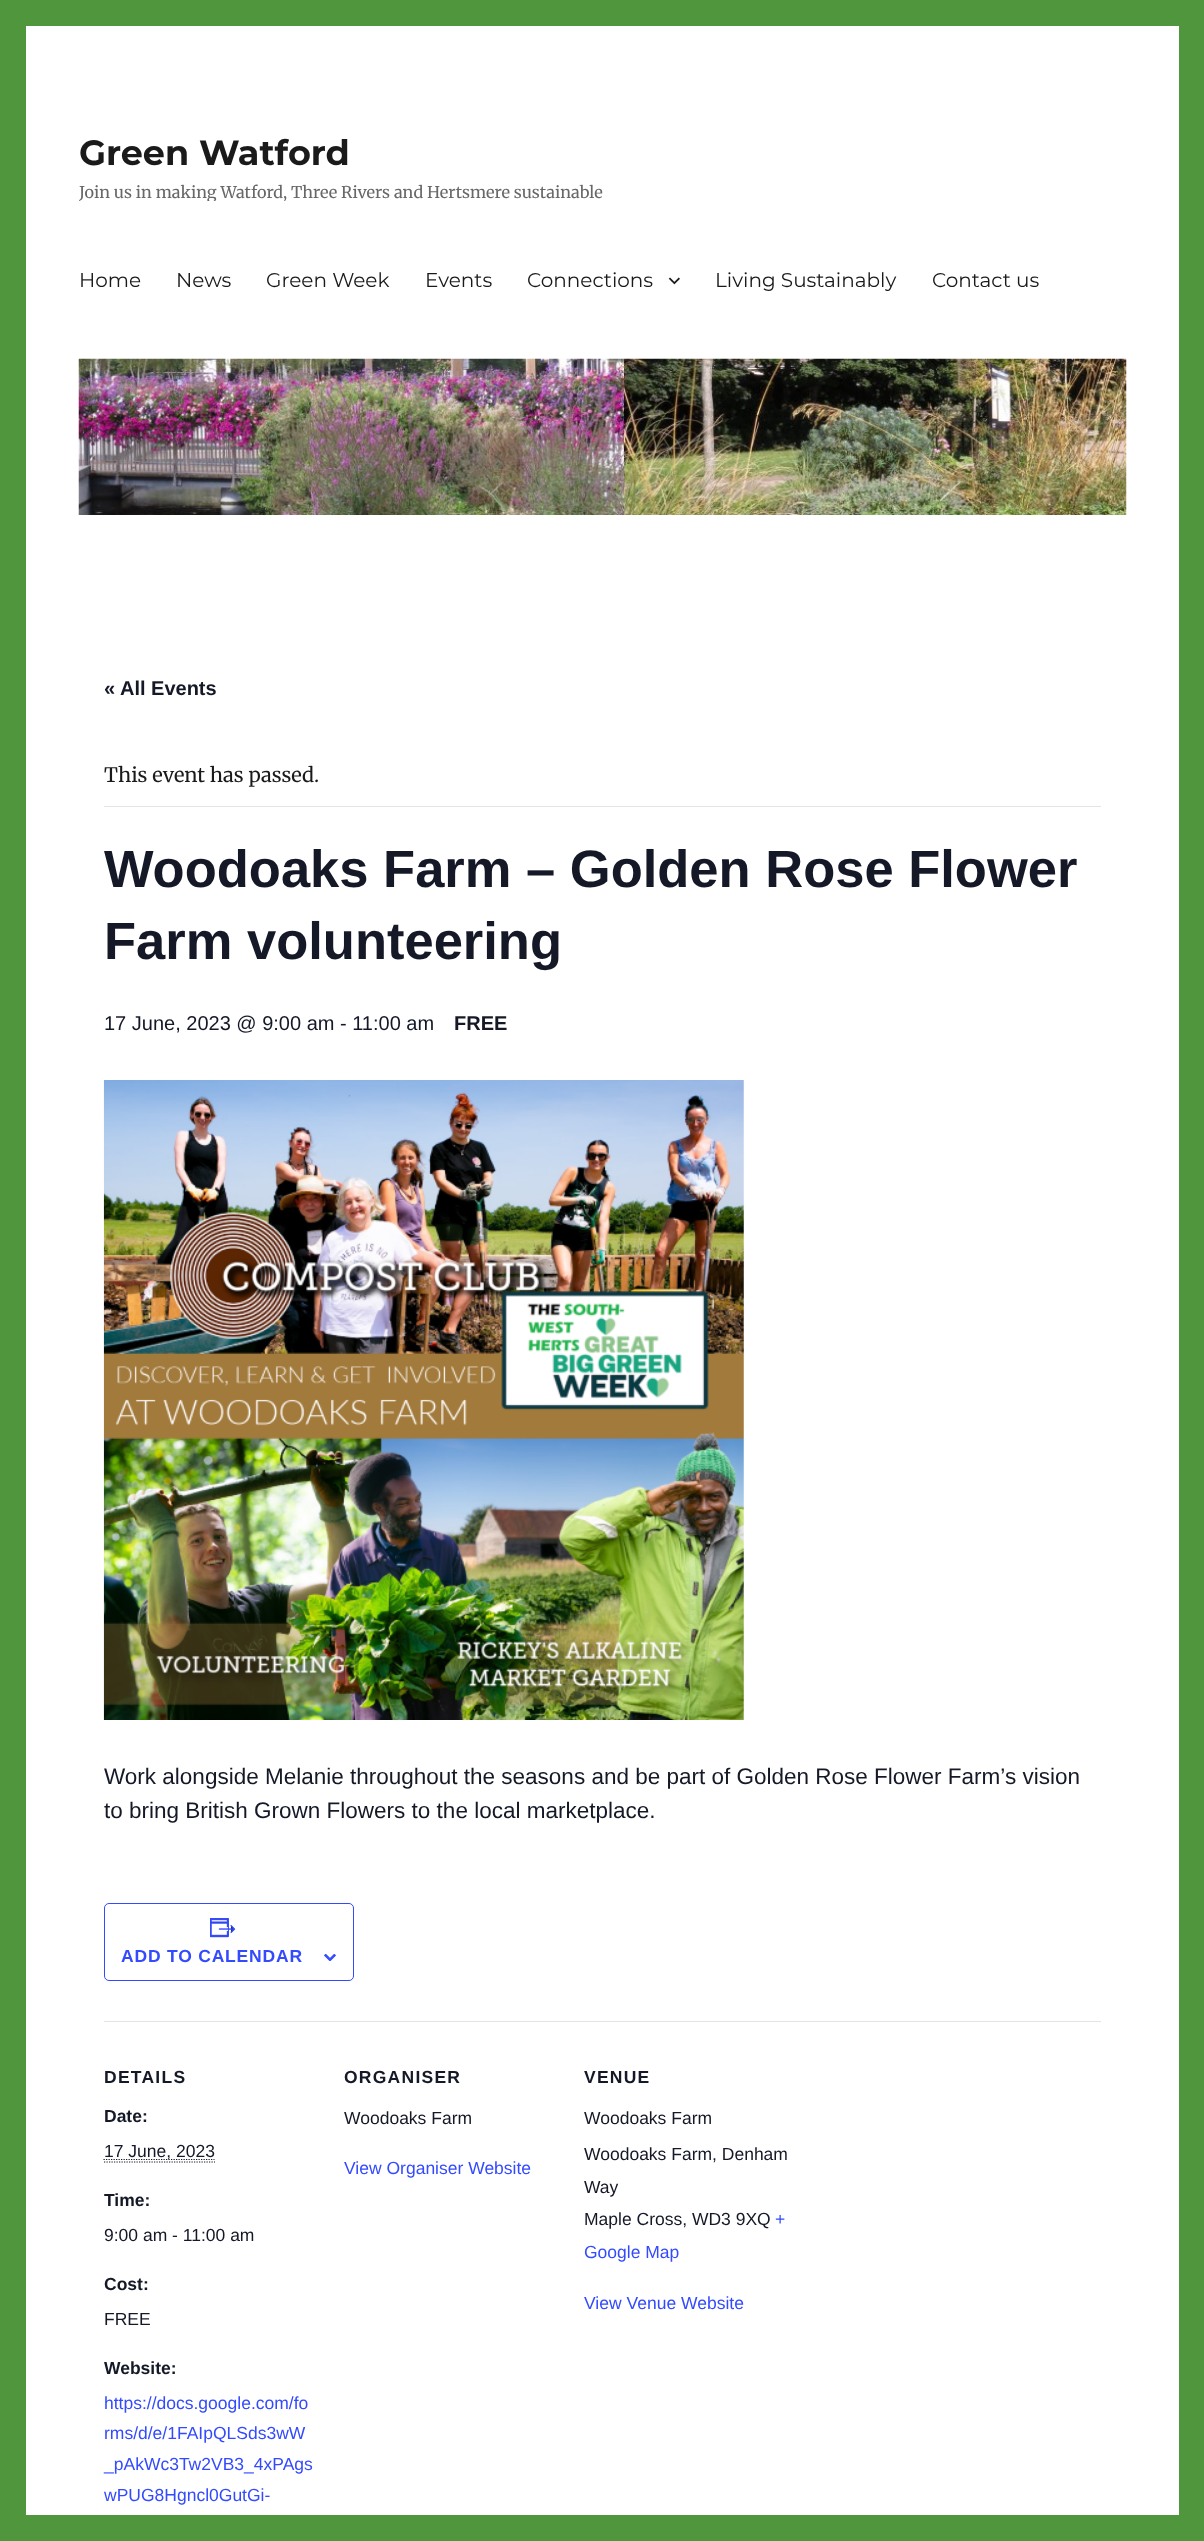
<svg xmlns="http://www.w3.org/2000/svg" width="1204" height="2541">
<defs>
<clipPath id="clip1"><rect x="79" y="131" width="524" height="70"/></clipPath>
</defs>
<rect width="100%" height="100%" fill="#4f963c"/>
<rect x="26" y="26" width="1153" height="2489" fill="#fff"/>
<text x="79" y="165" style="font-family:Montserrat;font-size:35px;font-weight:bold;fill:#1a1a1a">Green Watford</text>
<g clip-path="url(#clip1)">
<text x="79" y="198" style="font-family:Merriweather;font-size:16.25px;fill:#686868">Join us in making Watford, Three Rivers and Hertsmere sustainable</text>
</g>
<text x="79" y="287" style="font-family:Montserrat;font-size:20px;fill:#1a1a1a">Home</text>
<text x="176" y="287" style="font-family:Montserrat;font-size:20px;fill:#1a1a1a">News</text>
<text x="266" y="287" style="font-family:Montserrat;font-size:20px;fill:#1a1a1a">Green Week</text>
<text x="425" y="287" style="font-family:Montserrat;font-size:20px;fill:#1a1a1a">Events</text>
<text x="527" y="287" style="font-family:Montserrat;font-size:20px;fill:#1a1a1a">Connections</text>
<image x="668" y="277" width="12" height="8" href="media/1.png"/>
<text x="715" y="287" style="font-family:Montserrat;font-size:20px;fill:#1a1a1a">Living Sustainably</text>
<text x="932" y="287" style="font-family:Montserrat;font-size:20px;fill:#1a1a1a">Contact us</text>
<image x="78" y="358" width="1049" height="157" href="media/2.png"/>
<text x="104" y="695" style="font-family:Liberation Sans;font-size:20px;font-weight:bold;fill:#141827">« All Events</text>
<rect x="104" y="806" width="997" height="1" fill="#e4e4e4"/>
<text x="104" y="782" style="font-family:Merriweather;font-size:20px;fill:#1a1a1a">This event has passed.</text>
<text x="104" y="887" style="font-family:Liberation Sans;font-size:52.5px;font-weight:bold;fill:#141827">Woodoaks Farm – Golden Rose Flower</text>
<text x="104" y="959" style="font-family:Liberation Sans;font-size:52.5px;font-weight:bold;fill:#141827">Farm volunteering</text>
<text x="104" y="1030" style="font-family:Liberation Sans;font-size:20px;fill:#141827">17 June, 2023 @ 9:00 am - 11:00 am</text>
<text x="454" y="1030" style="font-family:Liberation Sans;font-size:20px;font-weight:bold;fill:#141827">FREE</text>
<image x="103" y="1080" width="641" height="640" href="media/3.png"/>
<text x="104" y="1784" style="font-family:Liberation Sans;font-size:22.5px;fill:#141827">Work alongside Melanie throughout the seasons and be part of Golden Rose Flower Farm’s vision</text>
<text x="104" y="1818" style="font-family:Liberation Sans;font-size:22.5px;fill:#141827">to bring British Grown Flowers to the local marketplace.</text>
<rect x="104.5" y="1903.5" width="249" height="77" rx="4.5" fill="none" stroke="#334aff"/>
<image x="210" y="1918" width="26" height="20" href="media/4.png"/>
<text x="121" y="1962" style="font-family:Liberation Sans;font-size:17.5px;font-weight:bold;letter-spacing:0.8px;fill:#334aff">ADD TO CALENDAR</text>
<image x="324" y="1954" width="12" height="7" href="media/5.png"/>
<rect x="104" y="2021" width="997" height="1" fill="#e4e4e4"/>
<text x="104" y="2083" style="font-family:Liberation Sans;font-size:17.5px;font-weight:bold;letter-spacing:1.25px;fill:#141827">DETAILS</text>
<text x="104" y="2122" style="font-family:Liberation Sans;font-size:17.5px;font-weight:bold;fill:#141827">Date:</text>
<path d="M103.5 2159.5h111" fill="none" stroke="#141827" stroke-width="1.2" stroke-dasharray="1.25 1.25"/>
<text x="104" y="2157" style="font-family:Liberation Sans;font-size:17.5px;fill:#141827">17 June, 2023</text>
<path d="M104 2162h111" fill="none" stroke="#141827" stroke-width="1.2" stroke-dasharray="1.25 1.25"/>
<text x="104" y="2206" style="font-family:Liberation Sans;font-size:17.5px;font-weight:bold;fill:#141827">Time:</text>
<text x="104" y="2241" style="font-family:Liberation Sans;font-size:17.5px;fill:#141827">9:00 am - 11:00 am</text>
<text x="104" y="2290" style="font-family:Liberation Sans;font-size:17.5px;font-weight:bold;fill:#141827">Cost:</text>
<text x="104" y="2325" style="font-family:Liberation Sans;font-size:17.5px;fill:#141827">FREE</text>
<text x="104" y="2374" style="font-family:Liberation Sans;font-size:17.5px;font-weight:bold;fill:#141827">Website:</text>
<text x="104" y="2409" style="font-family:Liberation Sans;font-size:17.5px;fill:#334aff">https://docs.google.com/fo</text>
<text x="104" y="2439" style="font-family:Liberation Sans;font-size:17.5px;fill:#334aff">rms/d/e/1FAIpQLSds3wW</text>
<text x="104" y="2470" style="font-family:Liberation Sans;font-size:17.5px;fill:#334aff">_pAkWc3Tw2VB3_4xPAgs</text>
<text x="104" y="2501" style="font-family:Liberation Sans;font-size:17.5px;fill:#334aff">wPUG8Hgncl0GutGi-</text>
<text x="344" y="2083" style="font-family:Liberation Sans;font-size:17.5px;font-weight:bold;letter-spacing:1.25px;fill:#141827">ORGANISER</text>
<text x="344" y="2124" style="font-family:Liberation Sans;font-size:17.5px;fill:#141827">Woodoaks Farm</text>
<text x="344" y="2174" style="font-family:Liberation Sans;font-size:17.5px;fill:#334aff">View Organiser Website</text>
<text x="584" y="2083" style="font-family:Liberation Sans;font-size:17.5px;font-weight:bold;letter-spacing:1.25px;fill:#141827">VENUE</text>
<text x="584" y="2124" style="font-family:Liberation Sans;font-size:17.5px;fill:#141827">Woodoaks Farm</text>
<text x="584" y="2160" style="font-family:Liberation Sans;font-size:17.5px;fill:#141827">Woodoaks Farm, Denham</text>
<text x="584" y="2193" style="font-family:Liberation Sans;font-size:17.5px;fill:#141827">Way</text>
<text x="584" y="2225" style="font-family:Liberation Sans;font-size:17.5px;fill:#141827">Maple Cross, WD3 9XQ</text>
<text x="775" y="2225" style="font-family:Liberation Sans;font-size:17.5px;fill:#334aff">+</text>
<text x="584" y="2258" style="font-family:Liberation Sans;font-size:17.5px;fill:#334aff">Google Map</text>
<text x="584" y="2309" style="font-family:Liberation Sans;font-size:17.5px;fill:#334aff">View Venue Website</text>
</svg>
